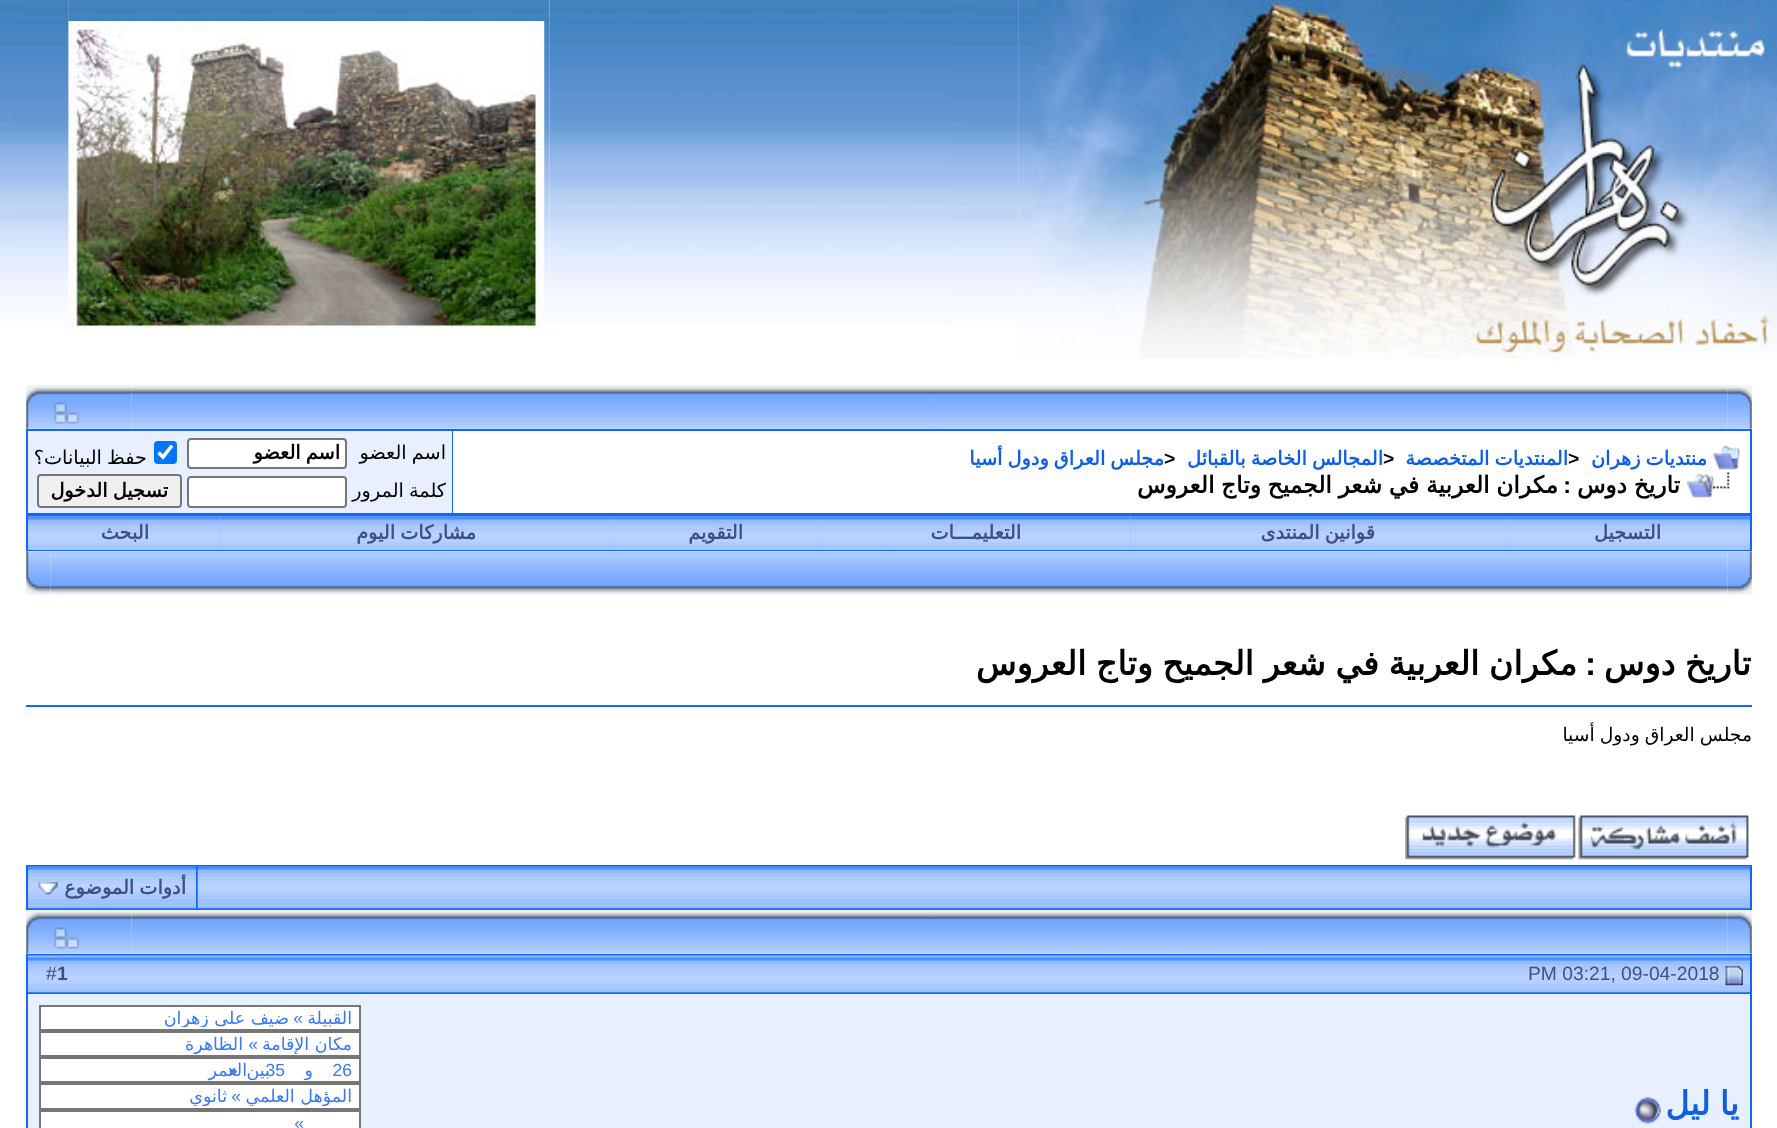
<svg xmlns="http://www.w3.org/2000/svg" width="1777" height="1128">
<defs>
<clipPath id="clip1"><rect x="47" y="1008" width="305" height="19"/></clipPath>
<clipPath id="clip2"><rect x="47" y="1034" width="305" height="20"/></clipPath>
<clipPath id="clip3"><rect x="47" y="1061" width="305" height="19"/></clipPath>
<clipPath id="clip4"><rect x="47" y="1087" width="305" height="19"/></clipPath>
</defs>
<rect width="100%" height="100%" fill="#fff"/>
<image x="549" y="0" width="470" height="325" href="media/2.png"/>
<image x="1018" y="0" width="759" height="359" href="media/1.png"/>
<image x="951" y="0" width="68" height="326" href="media/3.png"/>
<image x="68" y="0" width="482" height="325" href="media/4.png"/>
<image x="0" y="0" width="69" height="326" href="media/6.png"/>
<image x="68" y="21" width="477" height="308" href="media/5.png"/>
<image x="68" y="0" width="1" height="279" href="media/7.png"/>
<image x="131" y="385" width="1597" height="44" href="media/9.png"/>
<image x="1727" y="385" width="25" height="44" href="media/8.png"/>
<image x="927" y="393" width="4" height="36" href="media/10.png"/>
<image x="26" y="385" width="106" height="44" href="media/11.png"/>
<rect x="26" y="429" width="1726" height="122" fill="#1067f8"/>
<rect x="453" y="431" width="1297" height="82" fill="#fff"/>
<image x="1713" y="445" width="27" height="25" href="media/12.png"/>
<text x="1707" y="465" word-spacing="-1" style="font-family:DejaVu Sans;font-size:19.25px;font-weight:bold;direction:rtl;fill:#0f5fe3">منتديات زهران</text>
<text x="1568" y="465" style="font-family:Liberation Sans;font-size:19.25px;font-weight:bold;fill:#000">&gt;</text>
<text x="1568" y="465" word-spacing="-1" style="font-family:DejaVu Sans;font-size:19.25px;font-weight:bold;direction:rtl;fill:#0f5fe3">المنتديات المتخصصة</text>
<text x="1383" y="465" style="font-family:Liberation Sans;font-size:19.25px;font-weight:bold;fill:#000">&gt;</text>
<text x="1383" y="465" word-spacing="-1" style="font-family:DejaVu Sans;font-size:19.25px;font-weight:bold;direction:rtl;fill:#0f5fe3">المجالس الخاصة بالقبائل</text>
<text x="1164" y="465" style="font-family:Liberation Sans;font-size:19.25px;font-weight:bold;fill:#000">&gt;</text>
<text x="1164" y="465" word-spacing="-1" style="font-family:DejaVu Sans;font-size:19.25px;font-weight:bold;direction:rtl;fill:#0f5fe3">مجلس العراق ودول أسيا</text>
<image x="1687" y="472" width="43" height="26" href="media/13.png"/>
<text x="1680" y="493" word-spacing="-0.75" style="font-family:DejaVu Sans;font-size:23.3px;font-weight:bold;direction:rtl;fill:#000">تاريخ دوس</text>
<text x="1571" y="493" style="font-family:Liberation Sans;font-size:23.3px;font-weight:bold;direction:rtl;fill:#000">:</text>
<text x="1558" y="493" word-spacing="-0.75" style="font-family:DejaVu Sans;font-size:23.3px;font-weight:bold;direction:rtl;fill:#000">مكران العربية في شعر الجميح وتاج العروس</text>
<rect x="28" y="431" width="424" height="82" fill="#e8f0ff"/>
<text x="446" y="459" word-spacing="-1" style="font-family:DejaVu Sans;font-size:19.25px;direction:rtl;fill:#000">اسم العضو</text>
<rect x="188" y="439" width="158" height="29" rx="3" fill="#fff" stroke="#767676" stroke-width="2"/>
<text x="340" y="459" word-spacing="-1" style="font-family:DejaVu Sans;font-size:19.25px;font-weight:bold;direction:rtl;fill:#000">اسم العضو</text>
<rect x="154" y="441" width="23" height="23" rx="4" fill="#0075ff"/>
<path d="M158.5 452.5l4.5 4.5l9-11.5" fill="none" stroke="#fff" stroke-width="3.6"/>
<text x="147" y="464" word-spacing="-1" style="font-family:DejaVu Sans;font-size:19.25px;direction:rtl;fill:#000">حفظ البيانات؟</text>
<text x="446" y="497" word-spacing="-1" style="font-family:DejaVu Sans;font-size:19.25px;direction:rtl;fill:#000">كلمة المرور</text>
<rect x="188" y="477" width="158" height="30" rx="3" fill="#fff" stroke="#767676" stroke-width="2"/>
<rect x="38" y="475" width="143" height="32" rx="3" fill="#efefef" stroke="#767676" stroke-width="2"/>
<text x="168" y="497" word-spacing="-1" style="font-family:DejaVu Sans;font-size:19.25px;font-weight:bold;direction:rtl;fill:#000">تسجيل الدخول</text>
<rect x="28" y="516" width="1722" height="34" fill="#92c0fe"/>
<image x="1507" y="516" width="243" height="34" href="media/14.png"/>
<text x="1661" y="539" style="font-family:DejaVu Sans;font-size:19.25px;font-weight:bold;direction:rtl;fill:#3f517c">التسجيل</text>
<image x="1131" y="516" width="376" height="34" href="media/15.png"/>
<text x="1375" y="539" word-spacing="-1" style="font-family:DejaVu Sans;font-size:19.25px;font-weight:bold;direction:rtl;fill:#3f517c">قوانين المنتدى</text>
<image x="821" y="516" width="310" height="34" href="media/16.png"/>
<text x="1021" y="539" style="font-family:DejaVu Sans;font-size:19.25px;font-weight:bold;direction:rtl;fill:#3f517c">التعليمـــات</text>
<image x="611" y="516" width="210" height="34" href="media/17.png"/>
<text x="743" y="539" style="font-family:DejaVu Sans;font-size:19.25px;font-weight:bold;direction:rtl;fill:#3f517c">التقويم</text>
<image x="221" y="516" width="390" height="34" href="media/18.png"/>
<text x="476" y="539" word-spacing="-1" style="font-family:DejaVu Sans;font-size:19.25px;font-weight:bold;direction:rtl;fill:#3f517c">مشاركات اليوم</text>
<image x="28" y="516" width="193" height="34" href="media/19.png"/>
<text x="149" y="539" style="font-family:DejaVu Sans;font-size:19.25px;font-weight:bold;direction:rtl;fill:#3f517c">البحث</text>
<image x="50" y="551" width="1678" height="44" href="media/21.png"/>
<image x="1727" y="551" width="25" height="44" href="media/20.png"/>
<image x="887" y="551" width="4" height="1" href="media/22.png"/>
<image x="26" y="551" width="25" height="44" href="media/23.png"/>
<text x="1751" y="675" word-spacing="-1" style="font-family:DejaVu Sans;font-size:33.25px;font-weight:bold;direction:rtl;fill:#000">تاريخ دوس</text>
<text x="1596" y="675" style="font-family:Liberation Sans;font-size:33.25px;font-weight:bold;direction:rtl;fill:#000">:</text>
<text x="1577" y="675" word-spacing="-1" style="font-family:DejaVu Sans;font-size:33.25px;font-weight:bold;direction:rtl;fill:#000">مكران العربية في شعر الجميح وتاج العروس</text>
<rect x="26" y="705" width="1726" height="2" fill="#1067f8"/>
<text x="1752" y="741" word-spacing="-1" style="font-family:DejaVu Sans;font-size:18.75px;direction:rtl;fill:#000">مجلس العراق ودول أسيا</text>
<image x="1578" y="815" width="171" height="45" href="media/24.png"/>
<image x="1405" y="815" width="171" height="45" href="media/25.png"/>
<rect x="26" y="865" width="1726" height="45" fill="#1067f8"/>
<image x="197" y="866" width="1553" height="43" href="media/26.png"/>
<image x="28" y="866" width="168" height="43" href="media/27.png"/>
<text x="186" y="894" word-spacing="-1" style="font-family:DejaVu Sans;font-size:19.25px;font-weight:bold;direction:rtl;fill:#3f517c">أدوات الموضوع</text>
<image x="38" y="882" width="20" height="13" href="media/28.png"/>
<image x="131" y="910" width="1597" height="44" href="media/29.png"/>
<image x="1727" y="910" width="25" height="44" href="media/8.png"/>
<image x="927" y="918" width="4" height="36" href="media/10.png"/>
<image x="26" y="910" width="106" height="44" href="media/11.png"/>
<rect x="26" y="954" width="1726" height="174" fill="#1067f8"/>
<image x="28" y="955" width="1722" height="38" href="media/30.png"/>
<image x="1725" y="966" width="18" height="20" href="media/31.png"/>
<text x="1528" y="980" style="font-family:Liberation Sans;font-size:19.25px;fill:#3f517c">PM 03:21, 09-04-2018</text>
<text x="57" y="980" style="font-family:Liberation Sans;font-size:19.25px;font-weight:bold;fill:#3f517c">1</text>
<text x="46" y="980" style="font-family:Liberation Sans;font-size:19.25px;fill:#3f517c">#</text>
<rect x="28" y="994" width="1722" height="134" fill="#e8f0ff"/>
<text x="1739" y="1115" word-spacing="-1" style="font-family:DejaVu Sans;font-size:33px;font-weight:bold;direction:rtl;fill:#0f5fe3">يا ليل</text>
<image x="1634" y="1097" width="27" height="27" href="media/32.png"/>
<rect x="40" y="1006" width="320" height="24" fill="#fff" stroke="#767676" stroke-width="2"/>
<text x="352" y="1024" style="font-family:DejaVu Sans;font-size:17.5px;direction:rtl;fill:#3878fa">القبيلة</text>
<text x="303" y="1024" style="font-family:Liberation Sans;font-size:17.5px;direction:rtl;fill:#3878fa">»</text>
<g clip-path="url(#clip1)">
<text x="289" y="1024" style="font-family:DejaVu Sans;font-size:17.5px;direction:rtl;fill:#3878fa">ضيف على زهران</text>
</g>
<rect x="40" y="1032" width="320" height="24" fill="#fff" stroke="#767676" stroke-width="2"/>
<text x="352" y="1050" style="font-family:DejaVu Sans;font-size:17.5px;direction:rtl;fill:#3878fa">مكان الإقامة</text>
<text x="258" y="1050" style="font-family:Liberation Sans;font-size:17.5px;direction:rtl;fill:#3878fa">»</text>
<g clip-path="url(#clip2)">
<text x="243" y="1050" style="font-family:DejaVu Sans;font-size:17.5px;direction:rtl;fill:#3878fa">الظاهرة</text>
</g>
<rect x="40" y="1058" width="320" height="24" fill="#fff" stroke="#767676" stroke-width="2"/>
<text x="352" y="1076" style="font-family:Liberation Sans;font-size:17.5px;direction:rtl;fill:#3878fa">26</text>
<g clip-path="url(#clip3)">
<text x="270" y="1076" style="font-family:DejaVu Sans;font-size:17.5px;direction:rtl;fill:#3878fa">بين</text>
</g>
<text x="285" y="1076" style="font-family:Liberation Sans;font-size:17.5px;direction:rtl;fill:#3878fa">35</text>
<text x="247" y="1076" style="font-family:DejaVu Sans;font-size:17.5px;direction:rtl;fill:#3878fa">العمر</text>
<g clip-path="url(#clip3)">
<text x="313" y="1076" style="font-family:DejaVu Sans;font-size:17.5px;direction:rtl;fill:#3878fa">و</text>
</g>
<text x="228" y="1076" style="font-family:Liberation Sans;font-size:17.5px;fill:#3878fa">»</text>
<rect x="40" y="1084" width="320" height="25" fill="#fff" stroke="#767676" stroke-width="2"/>
<g clip-path="url(#clip4)">
<text x="352" y="1102" style="font-family:DejaVu Sans;font-size:17.5px;direction:rtl;fill:#3878fa">المؤهل العلمي</text>
</g>
<text x="241" y="1102" style="font-family:Liberation Sans;font-size:17.5px;direction:rtl;fill:#3878fa">»</text>
<g clip-path="url(#clip4)">
<text x="227" y="1102" style="font-family:DejaVu Sans;font-size:17.5px;direction:rtl;fill:#3878fa">ثانوي</text>
</g>
<rect x="40" y="1111" width="320" height="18" fill="#fff" stroke="#767676" stroke-width="2"/>
<text x="304" y="1129" style="font-family:Liberation Sans;font-size:17.5px;direction:rtl;fill:#3878fa">»</text>
</svg>
